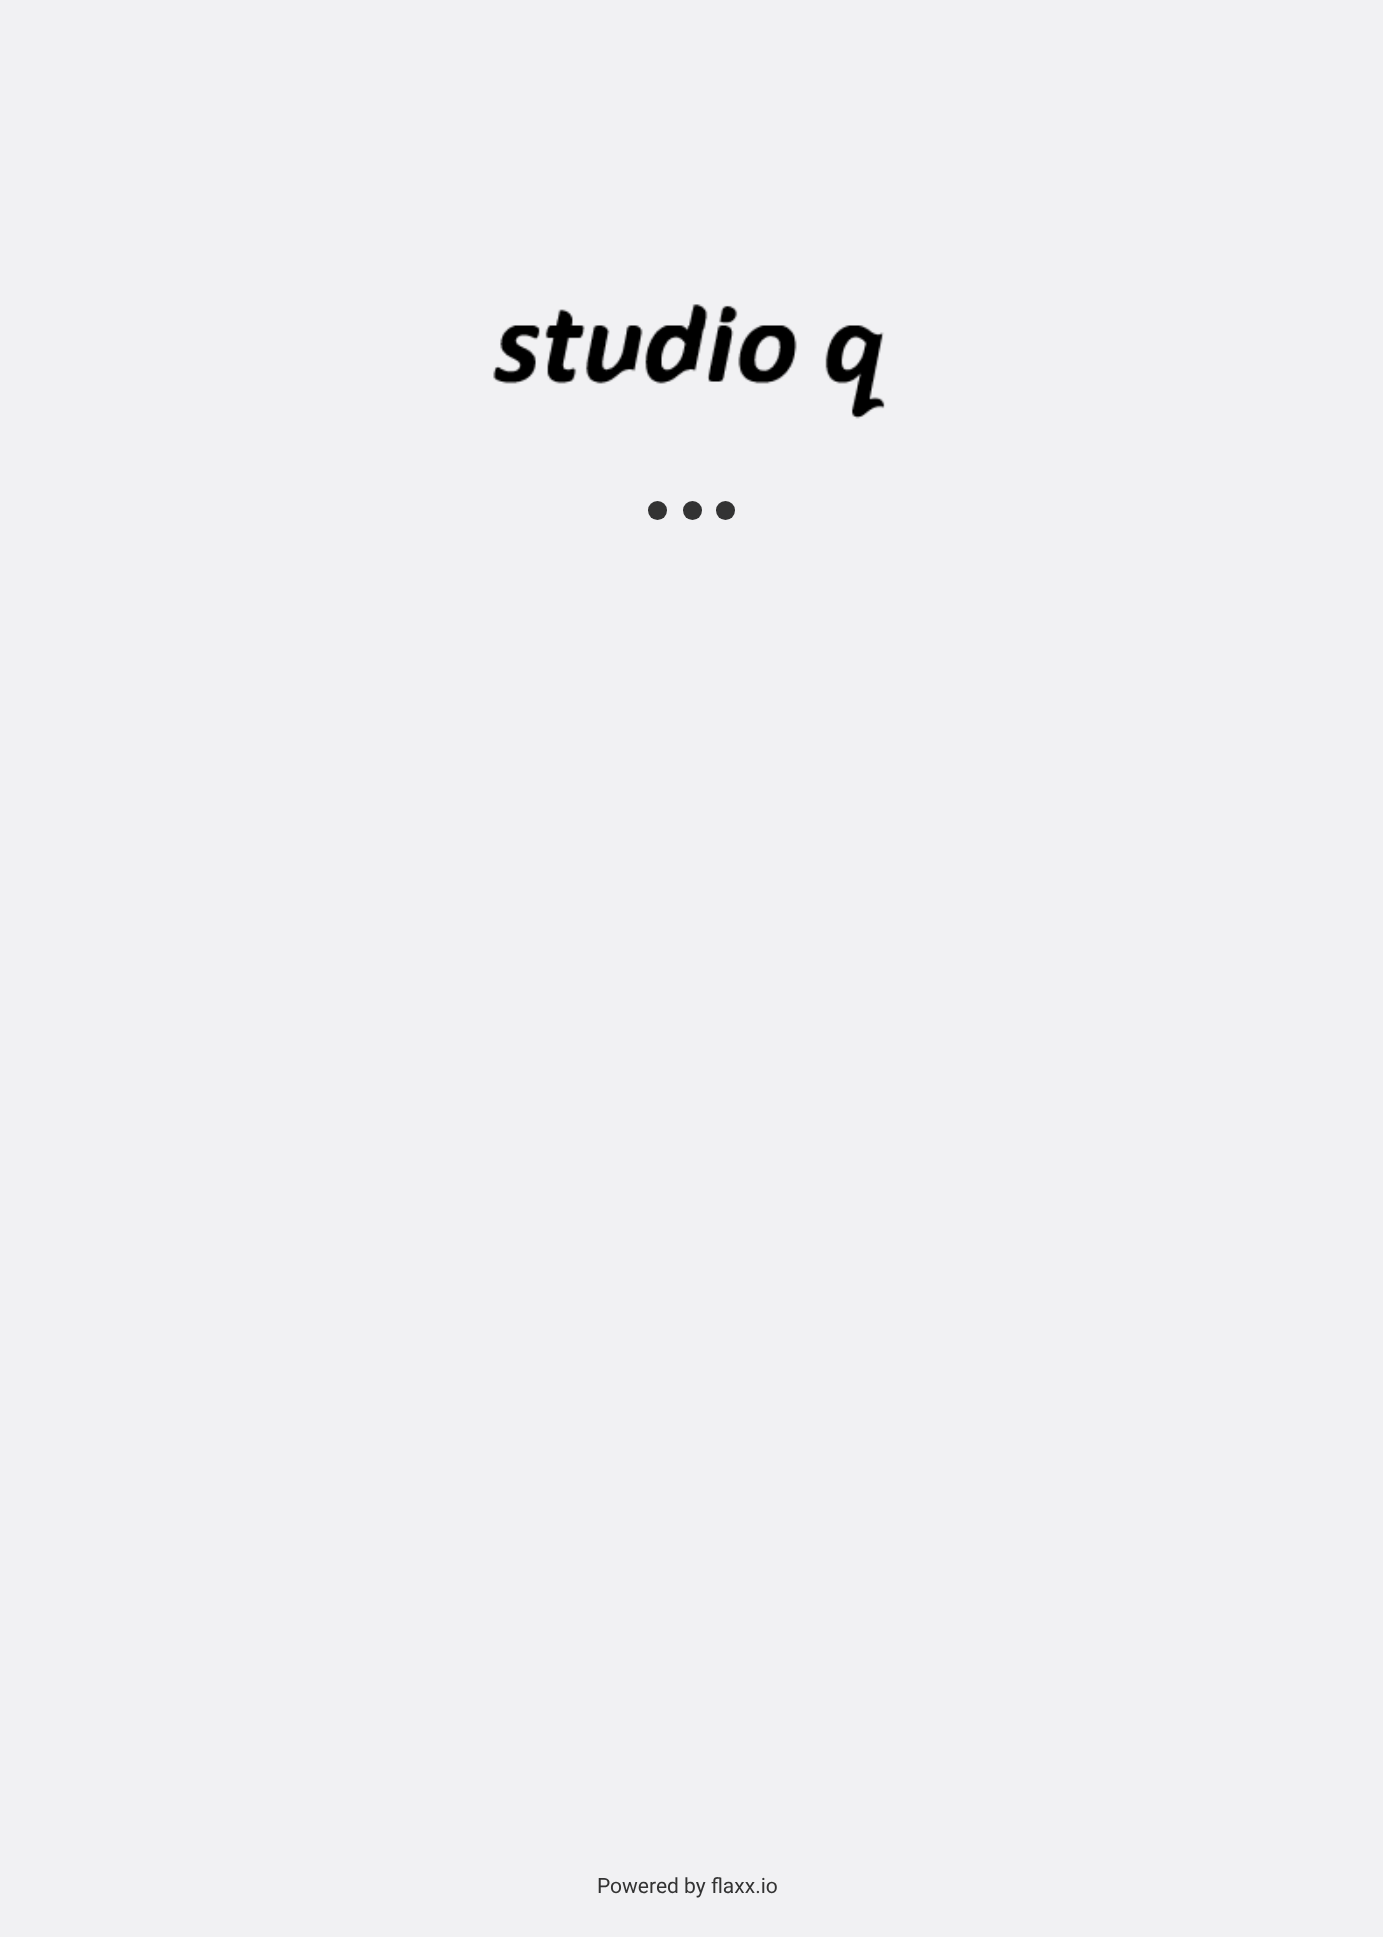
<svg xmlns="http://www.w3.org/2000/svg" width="1383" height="1937">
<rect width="100%" height="100%" fill="#f1f1f3"/>
<image x="493" y="304" width="392" height="115" href="media/1.png"/>
<circle cx="657.5" cy="510.5" r="9.5" fill="#333"/>
<circle cx="692.5" cy="510.5" r="9.5" fill="#333"/>
<circle cx="725.5" cy="510.5" r="9.5" fill="#333"/>
<text x="597" y="1893" style="font-family:Roboto;font-size:21px;fill:#333">Powered by flaxx.io</text>
</svg>
